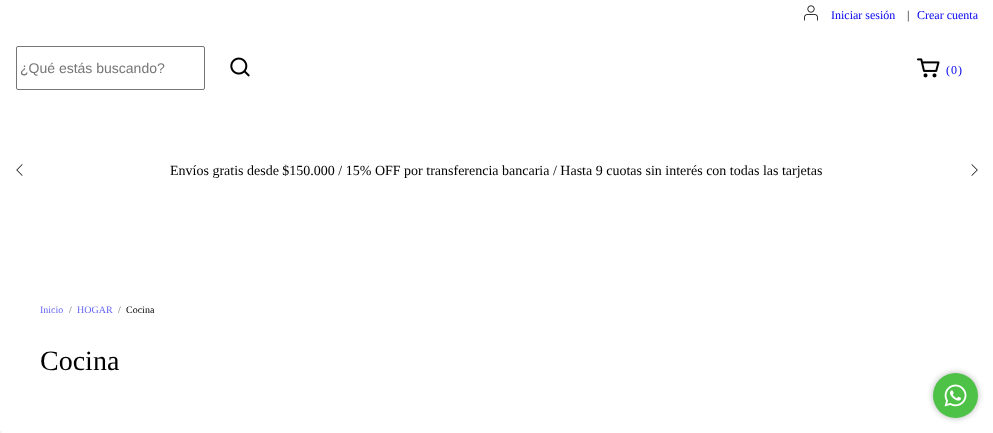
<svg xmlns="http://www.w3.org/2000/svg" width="993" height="433">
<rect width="100%" height="100%" fill="#fff"/>
<image x="804" y="5" width="14" height="16" href="media/1.png"/>
<text x="831" y="19" style="font-family:Liberation Serif;font-size:12px;fill:#00e">Iniciar sesión</text>
<text x="907" y="19" style="font-family:Liberation Serif;font-size:12px;fill:#000">|</text>
<text x="917" y="19" style="font-family:Liberation Serif;font-size:12px;fill:#00e">Crear cuenta</text>
<rect x="16.5" y="46.5" width="188" height="43" rx="1.5" fill="none" stroke="#767676"/>
<text x="20" y="73" style="font-family:Liberation Sans;font-size:14px;fill:#757575">¿Qué estás buscando?</text>
<image x="230" y="57" width="20" height="20" href="media/2.png"/>
<image x="917" y="58" width="23" height="20" href="media/3.png"/>
<text x="946" y="74" style="font-family:Liberation Serif;font-size:12px;fill:#00e">(</text>
<text x="951" y="74" style="font-family:Liberation Serif;font-size:12px;fill:#00e">0</text>
<text x="958" y="74" style="font-family:Liberation Serif;font-size:12px;fill:#00e">)</text>
<image x="16" y="164" width="7" height="12" href="media/4.png"/>
<text x="170" y="175" style="font-family:Liberation Serif;font-size:14px;fill:#000">Envíos gratis desde $150.000 / 15% OFF por transferencia bancaria / Hasta 9 cuotas sin interés con todas las tarjetas</text>
<image x="971" y="164" width="7" height="12" href="media/5.png"/>
<text x="40" y="313" style="font-family:Liberation Serif;font-size:10px;fill:#6666f5">Inicio</text>
<text x="69" y="313" style="font-family:Liberation Serif;font-size:10px;fill:#666">/</text>
<text x="77" y="313" style="font-family:Liberation Serif;font-size:10px;fill:#6666f5">HOGAR</text>
<text x="118" y="313" style="font-family:Liberation Serif;font-size:10px;fill:#666">/</text>
<text x="126" y="313" style="font-family:Liberation Serif;font-size:10px;fill:#000">Cocina</text>
<text x="40" y="370" style="font-family:Liberation Serif;font-size:28px;fill:#000">Cocina</text>
<rect x="933" y="373" width="45" height="45" rx="22.5" fill="#0000004d" filter="blur(3px)"/>
<circle cx="955.5" cy="395.5" r="22.5" fill="#4dc247"/>
<image x="944" y="384" width="23" height="23" href="media/6.png"/>
<rect y="431" width="2" height="2" fill="#f5f5f5"/>
</svg>
